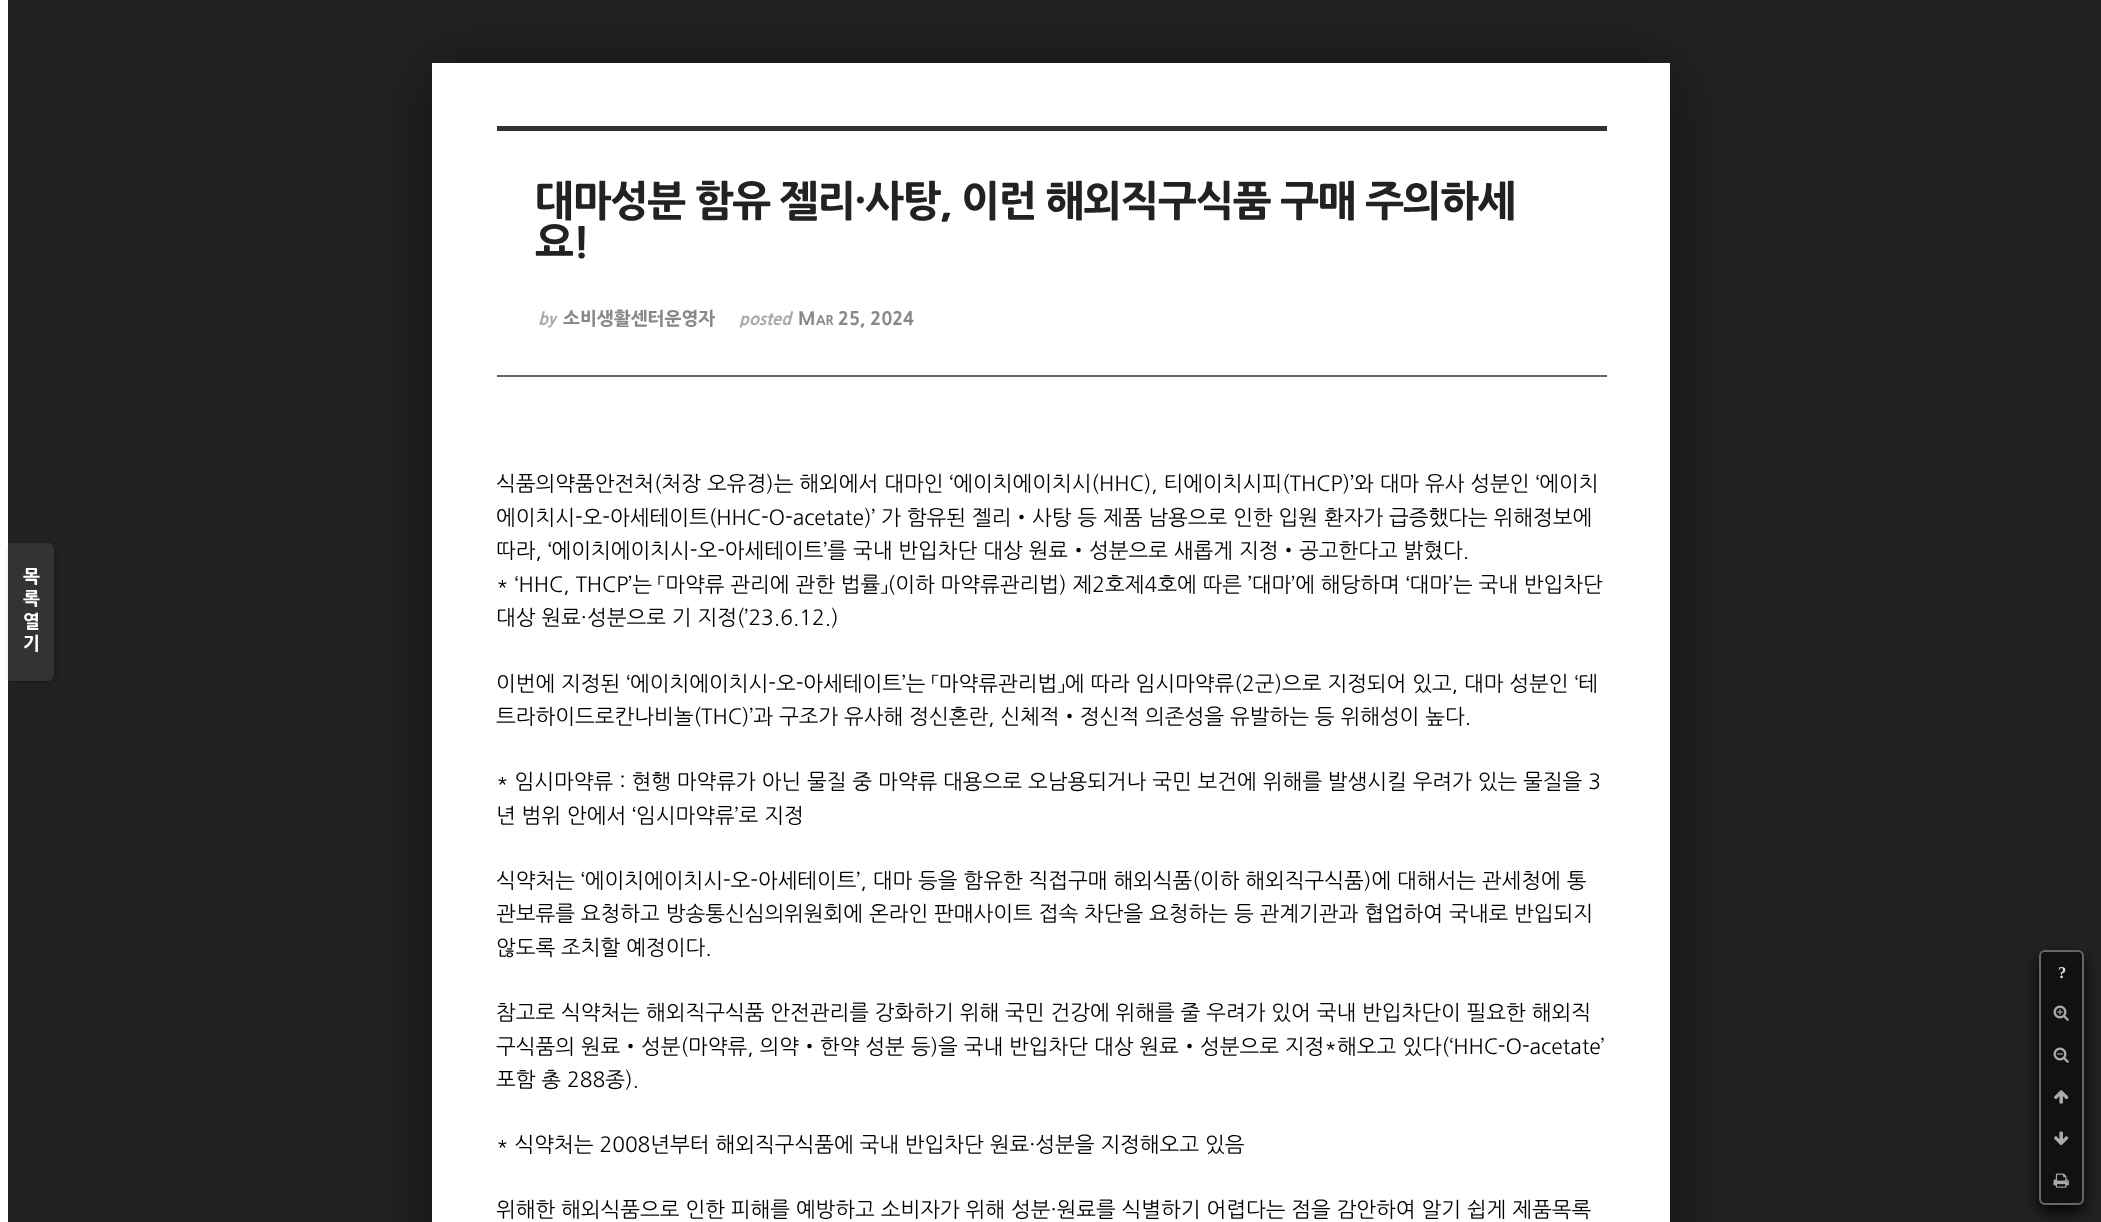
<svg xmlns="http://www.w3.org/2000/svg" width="2101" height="1222">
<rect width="100%" height="100%" fill="#222"/>
<rect x="432" y="69" width="1238" height="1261" fill="#00000080" filter="blur(36px)"/>
<rect x="432" y="63" width="1238" height="1159" fill="#fff"/>
<rect width="8" height="1222" fill="#fff"/>
<rect x="9" y="545" width="47" height="138" rx="6" fill="#00000033" filter="blur(2px)"/>
<path d="M8 543h40c3.5 0 6 2.5 6 6v126c0 3.5-2.5 6-6 6h-40z" fill="#333"/>
<text x="23" y="583" style="font-family:NanumGothic;font-size:18px;font-weight:800;fill:#fff">목</text>
<text x="23" y="605" style="font-family:NanumGothic;font-size:18px;font-weight:800;fill:#fff">록</text>
<text x="23" y="628" style="font-family:NanumGothic;font-size:18px;font-weight:800;fill:#fff">열</text>
<text x="23" y="650" style="font-family:NanumGothic;font-size:18px;font-weight:800;fill:#fff">기</text>
<rect x="497" y="126" width="1110" height="5" fill="#333"/>
<rect x="497" y="375" width="1110" height="2" fill="#666"/>
<text x="535" y="216" style="font-family:NanumGothic;font-size:41.4px;font-weight:800;letter-spacing:-1.5px;fill:#222">대마성분 함유 젤리·사탕, 이런 해외직구식품 구매 주의하세</text>
<text x="535" y="258" style="font-family:NanumGothic;font-size:41.4px;font-weight:800;letter-spacing:-1.5px;fill:#222">요!</text>
<text x="538" y="325" style="font-family:NanumGothic;font-size:16.5px;font-weight:800;font-style:italic;fill:#aaa">by</text>
<text x="563" y="325" style="font-family:NanumGothic;font-size:18px;font-weight:800;fill:#888">소비생활센터운영자</text>
<text x="739" y="325" style="font-family:NanumGothic;font-size:16.5px;font-weight:800;font-style:italic;fill:#aaa">posted</text>
<text x="798" y="325" style="font-family:NanumGothic;font-size:18px;font-weight:800;fill:#888">M</text>
<text x="816" y="325" style="font-family:NanumGothic;font-size:13px;font-weight:800;fill:#888">AR</text>
<text x="838" y="325" style="font-family:NanumGothic;font-size:18px;font-weight:800;fill:#888">25, 2024</text>
<rect x="2039" y="957" width="45" height="255" rx="6" fill="#000000e6" filter="blur(7.5px)"/>
<rect x="2040" y="951" width="43" height="253" rx="5" fill="#111" stroke="#666" stroke-width="2"/>
<text x="2058" y="978" style="font-family:Liberation Serif;font-size:16.5px;font-weight:bold;letter-spacing:-1.5px;fill:#ddd">?</text>
<image x="2053" y="1005" width="16" height="16" href="media/1.png"/>
<image x="2053" y="1047" width="16" height="16" href="media/2.png"/>
<image x="2054" y="1090" width="15" height="14" href="media/3.png"/>
<image x="2054" y="1131" width="15" height="15" href="media/4.png"/>
<image x="2053" y="1173" width="16" height="15" href="media/5.png"/>
<text x="496" y="491" style="font-family:NanumGothic;font-size:21px;fill:#000">식품의약품안전처(처장 오유경)는 해외에서 대마인 ‘에이치에이치시(HHC), 티에이치시피(THCP)’와 대마 유사 성분인 ‘에이치</text>
<text x="496" y="525" style="font-family:NanumGothic;font-size:21px;fill:#000">에이치시-오-아세테이트(HHC-O-acetate)’ 가 함유된 젤리</text>
<text x="1011" y="525" style="font-family:Noto Sans CJK KR;font-size:21px;fill:#000">‧</text>
<text x="1032" y="525" style="font-family:NanumGothic;font-size:21px;fill:#000">사탕 등 제품 남용으로 인한 입원 환자가 급증했다는 위해정보에</text>
<text x="496" y="558" style="font-family:NanumGothic;font-size:21px;fill:#000">따라, ‘에이치에이치시-오-아세테이트’를 국내 반입차단 대상 원료</text>
<text x="1068" y="558" style="font-family:Noto Sans CJK KR;font-size:21px;fill:#000">‧</text>
<text x="1089" y="558" style="font-family:NanumGothic;font-size:21px;fill:#000">성분으로 새롭게 지정</text>
<text x="1278" y="558" style="font-family:Noto Sans CJK KR;font-size:21px;fill:#000">‧</text>
<text x="1299" y="558" style="font-family:NanumGothic;font-size:21px;fill:#000">공고한다고 밝혔다.</text>
<text x="496" y="592" style="font-family:NanumGothic;font-size:21px;fill:#000">* ‘HHC, THCP’는 「마약류 관리에 관한 법률」(이하 마약류관리법) 제2호제4호에 따른 ’대마’에 해당하며 ‘대마’는 국내 반입차단</text>
<text x="496" y="625" style="font-family:NanumGothic;font-size:21px;fill:#000">대상 원료·성분으로 기 지정(’23.6.12.)</text>
<text x="496" y="691" style="font-family:NanumGothic;font-size:21px;fill:#000">이번에 지정된 ‘에이치에이치시-오-아세테이트’는 「마약류관리법」에 따라 임시마약류(2군)으로 지정되어 있고, 대마 성분인 ‘테</text>
<text x="496" y="724" style="font-family:NanumGothic;font-size:21px;fill:#000">트라하이드로칸나비놀(THC)’과 구조가 유사해 정신혼란, 신체적</text>
<text x="1059" y="724" style="font-family:Noto Sans CJK KR;font-size:21px;fill:#000">‧</text>
<text x="1080" y="724" style="font-family:NanumGothic;font-size:21px;fill:#000">정신적 의존성을 유발하는 등 위해성이 높다.</text>
<text x="496" y="789" style="font-family:NanumGothic;font-size:21px;fill:#000">* 임시마약류 : 현행 마약류가 아닌 물질 중 마약류 대용으로 오남용되거나 국민 보건에 위해를 발생시킬 우려가 있는 물질을 3</text>
<text x="496" y="823" style="font-family:NanumGothic;font-size:21px;fill:#000">년 범위 안에서 ‘임시마약류’로 지정</text>
<text x="496" y="888" style="font-family:NanumGothic;font-size:21px;fill:#000">식약처는 ‘에이치에이치시-오-아세테이트’, 대마 등을 함유한 직접구매 해외식품(이하 해외직구식품)에 대해서는 관세청에 통</text>
<text x="496" y="921" style="font-family:NanumGothic;font-size:21px;fill:#000">관보류를 요청하고 방송통신심의위원회에 온라인 판매사이트 접속 차단을 요청하는 등 관계기관과 협업하여 국내로 반입되지</text>
<text x="496" y="955" style="font-family:NanumGothic;font-size:21px;fill:#000">않도록 조치할 예정이다.</text>
<text x="496" y="1020" style="font-family:NanumGothic;font-size:21px;fill:#000">참고로 식약처는 해외직구식품 안전관리를 강화하기 위해 국민 건강에 위해를 줄 우려가 있어 국내 반입차단이 필요한 해외직</text>
<text x="496" y="1054" style="font-family:NanumGothic;font-size:21px;fill:#000">구식품의 원료</text>
<text x="620" y="1054" style="font-family:Noto Sans CJK KR;font-size:21px;fill:#000">‧</text>
<text x="641" y="1054" style="font-family:NanumGothic;font-size:21px;fill:#000">성분(마약류, 의약</text>
<text x="799" y="1054" style="font-family:Noto Sans CJK KR;font-size:21px;fill:#000">‧</text>
<text x="820" y="1054" style="font-family:NanumGothic;font-size:21px;fill:#000">한약 성분 등)을 국내 반입차단 대상 원료</text>
<text x="1179" y="1054" style="font-family:Noto Sans CJK KR;font-size:21px;fill:#000">‧</text>
<text x="1200" y="1054" style="font-family:NanumGothic;font-size:21px;fill:#000">성분으로 지정*해오고 있다(‘HHC-O-acetate’</text>
<text x="496" y="1087" style="font-family:NanumGothic;font-size:21px;fill:#000">포함 총 288종).</text>
<text x="496" y="1152" style="font-family:NanumGothic;font-size:21px;fill:#000">* 식약처는 2008년부터 해외직구식품에 국내 반입차단 원료·성분을 지정해오고 있음</text>
<text x="496" y="1217" style="font-family:NanumGothic;font-size:21px;fill:#000">위해한 해외식품으로 인한 피해를 예방하고 소비자가 위해 성분·원료를 식별하기 어렵다는 점을 감안하여 알기 쉽게 제품목록</text>
</svg>
